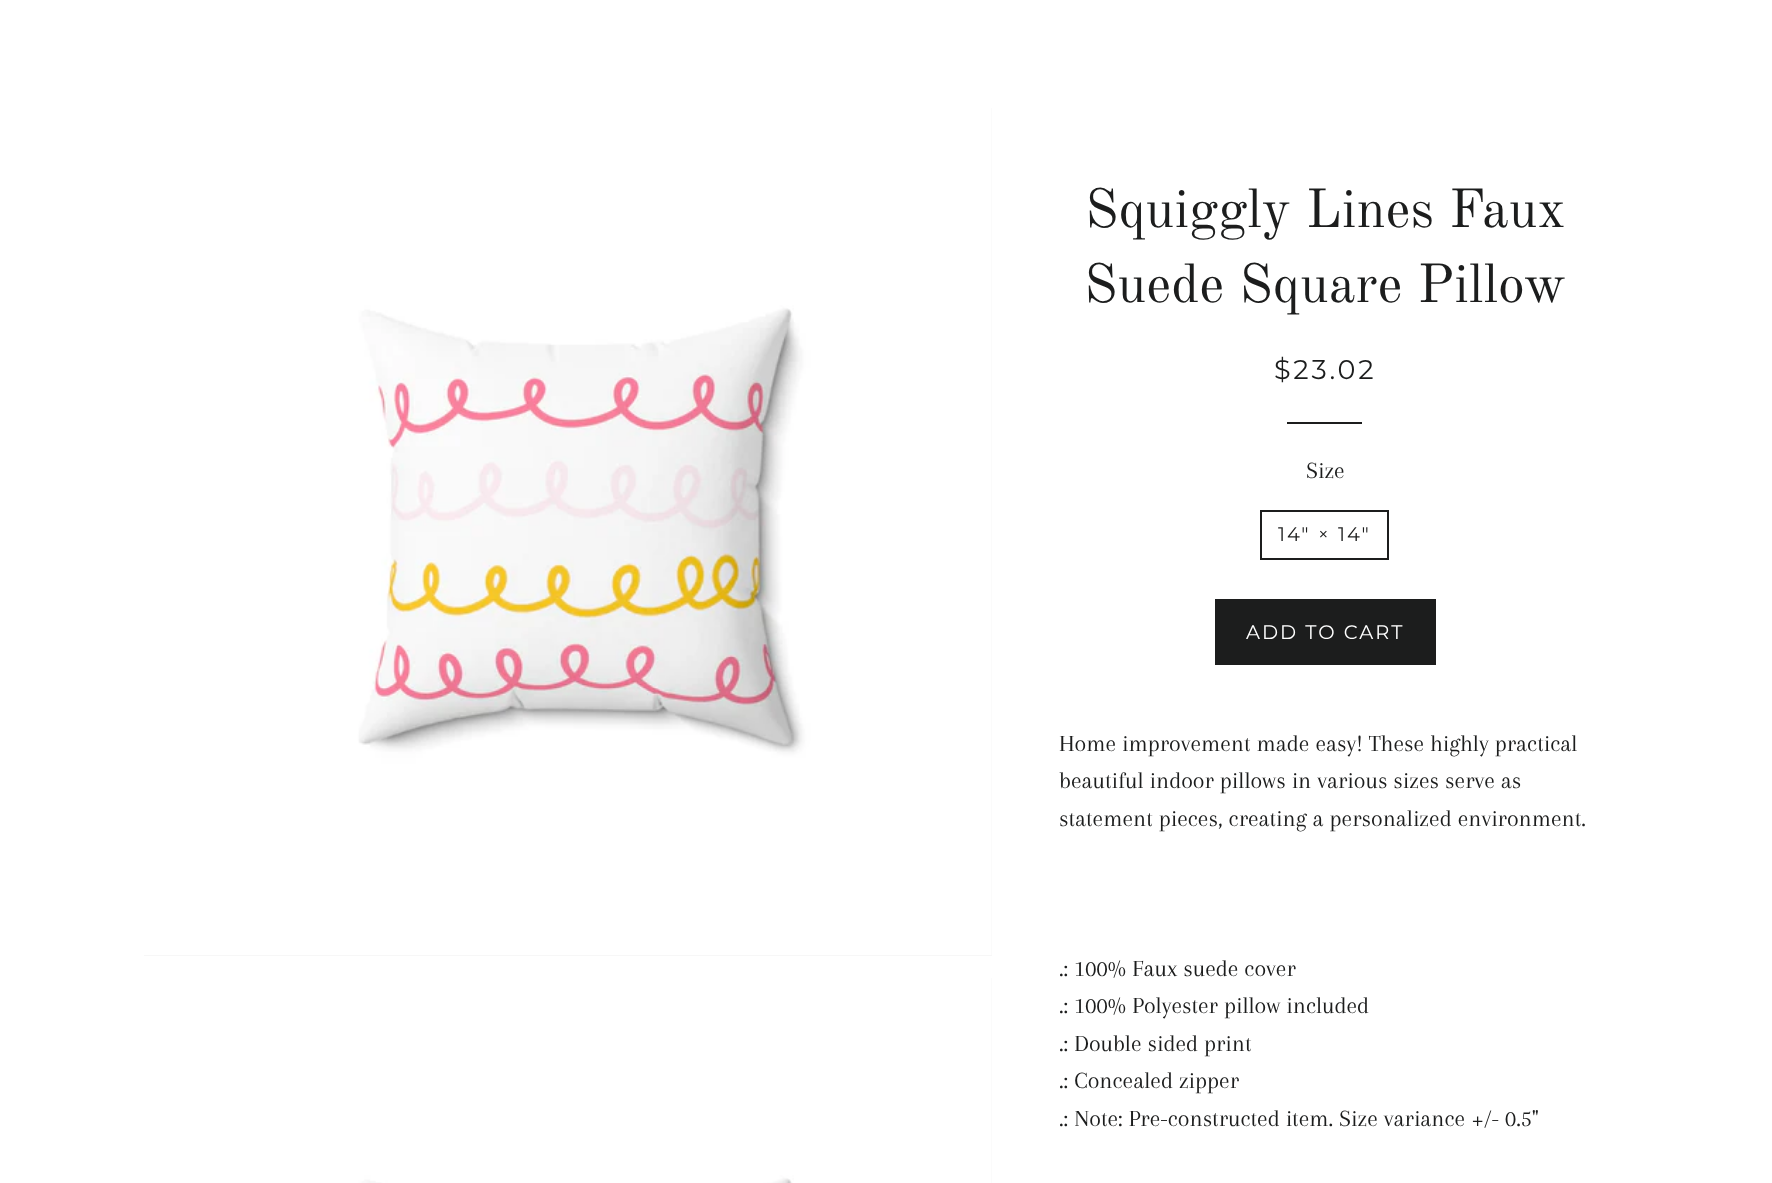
<svg xmlns="http://www.w3.org/2000/svg" width="1772" height="1183">
<rect width="100%" height="100%" fill="#fff"/>
<rect x="144" y="108" width="848" height="848" fill="#f7f7f7"/>
<image x="144" y="108" width="848" height="847" href="media/1.png"/>
<rect x="991" y="978" width="1" height="205" fill="#f7f7f7"/>
<image x="144" y="978" width="848" height="205" href="media/2.png"/>
<text x="1085" y="227" style="font-family:Old Standard TT;font-size:54px;fill:#1c1d1d">Squiggly Lines Faux</text>
<text x="1084" y="302" style="font-family:Old Standard TT;font-size:54px;fill:#1c1d1d">Suede Square Pillow</text>
<text x="1274" y="379" style="font-family:Montserrat;font-size:27px;font-weight:100;letter-spacing:2.75px;fill:#1c1d1d">$23.02</text>
<rect x="1287" y="422" width="75" height="2" fill="#1c1d1d"/>
<text x="1306" y="478" style="font-family:Arapey;font-size:24px;fill:#1c1d1d">Size</text>
<rect x="1261" y="511" width="127" height="48" fill="none" stroke="#1c1d1d" stroke-width="2"/>
<text x="1278" y="541" style="font-family:Montserrat;font-size:19.5px;font-weight:100;letter-spacing:2px;fill:#1c1d1d">14" × 14"</text>
<rect x="1215" y="599" width="221" height="66" fill="#1c1d1d"/>
<text x="1246" y="639" style="font-family:Montserrat;font-size:19.5px;font-weight:100;letter-spacing:2px;fill:#fff">ADD TO CART</text>
<text x="1059" y="751" style="font-family:Arapey;font-size:24px;fill:#1c1d1d">Home improvement made easy! These highly practical</text>
<text x="1059" y="788" style="font-family:Arapey;font-size:24px;fill:#1c1d1d">beautiful indoor pillows in various sizes serve as</text>
<text x="1059" y="826" style="font-family:Arapey;font-size:24px;fill:#1c1d1d">statement pieces, creating a personalized environment.</text>
<text x="1059" y="976" style="font-family:Arapey;font-size:24px;fill:#1c1d1d">.: 100% Faux suede cover</text>
<text x="1059" y="1013" style="font-family:Arapey;font-size:24px;fill:#1c1d1d">.: 100% Polyester pillow included</text>
<text x="1059" y="1051" style="font-family:Arapey;font-size:24px;fill:#1c1d1d">.: Double sided print</text>
<text x="1059" y="1088" style="font-family:Arapey;font-size:24px;fill:#1c1d1d">.: Concealed zipper</text>
<text x="1059" y="1126" style="font-family:Arapey;font-size:24px;fill:#1c1d1d">.: Note: Pre-constructed item. Size variance +/- 0.5"</text>
</svg>
